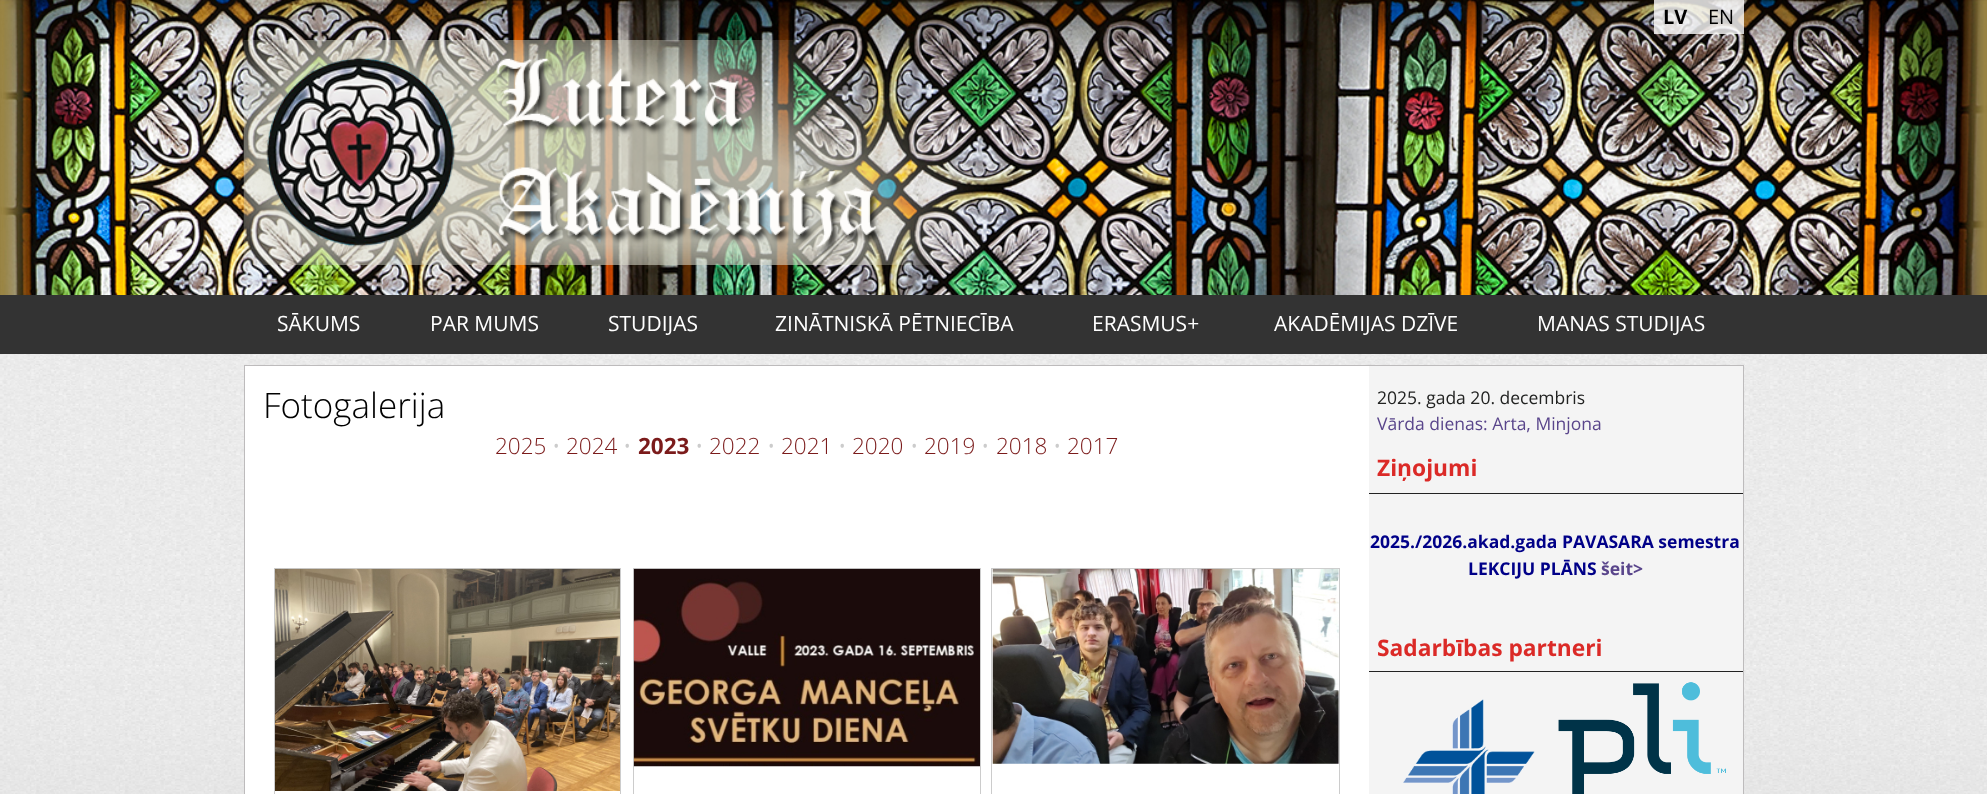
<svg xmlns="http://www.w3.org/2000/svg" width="1987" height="794">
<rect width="100%" height="100%" fill="#fff"/>
<image x="0" y="354" width="1987" height="440" href="media/1.png"/>
<image x="0" y="0" width="1987" height="295" href="media/2.png"/>
<rect x="1654" width="44" height="34" fill="#ffffffcc"/>
<text x="1663" y="24" style="font-family:Open Sans;font-size:20px;font-weight:bold;fill:#000">LV</text>
<rect x="1698" width="46" height="34" fill="#ffffffcc"/>
<text x="1708" y="24" style="font-family:Open Sans;font-size:20px;fill:#000">EN</text>
<image x="243" y="40" width="741" height="225" href="media/3.png"/>
<rect y="295" width="1987" height="59" fill="#333"/>
<text x="277" y="331" style="font-family:Open Sans;font-size:21px;fill:#fff">SĀKUMS</text>
<text x="430" y="331" style="font-family:Open Sans;font-size:21px;fill:#fff">PAR MUMS</text>
<text x="608" y="331" style="font-family:Open Sans;font-size:21px;fill:#fff">STUDIJAS</text>
<text x="775" y="331" style="font-family:Open Sans;font-size:21px;fill:#fff">ZINĀTNISKĀ PĒTNIECĪBA</text>
<text x="1092" y="331" style="font-family:Open Sans;font-size:21px;fill:#fff">ERASMUS+</text>
<text x="1274" y="331" style="font-family:Open Sans;font-size:21px;fill:#fff">AKADĒMIJAS DZĪVE</text>
<text x="1537" y="331" style="font-family:Open Sans;font-size:21px;fill:#fff">MANAS STUDIJAS</text>
<rect x="245" y="366" width="1124" height="428" fill="#fff"/>
<rect x="244.5" y="365.5" width="1499" height="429" fill="none" stroke="#bdbbbc"/>
<text x="263" y="418" style="font-family:Open Sans;font-size:35px;font-weight:300;fill:#000">Fotogalerija</text>
<text x="495" y="454" style="font-family:Open Sans;font-size:22.5px;font-weight:300;fill:#7b1b1b">2025</text>
<text x="552" y="454" style="font-family:Open Sans;font-size:22.5px;font-weight:300;fill:#ccc">•</text>
<text x="566" y="454" style="font-family:Open Sans;font-size:22.5px;font-weight:300;fill:#7b1b1b">2024</text>
<text x="623" y="454" style="font-family:Open Sans;font-size:22.5px;font-weight:300;fill:#ccc">•</text>
<text x="638" y="454" style="font-family:Open Sans;font-size:22.5px;font-weight:bold;fill:#7b1b1b">2023</text>
<text x="695" y="454" style="font-family:Open Sans;font-size:22.5px;font-weight:300;fill:#ccc">•</text>
<text x="709" y="454" style="font-family:Open Sans;font-size:22.5px;font-weight:300;fill:#7b1b1b">2022</text>
<text x="767" y="454" style="font-family:Open Sans;font-size:22.5px;font-weight:300;fill:#ccc">•</text>
<text x="781" y="454" style="font-family:Open Sans;font-size:22.5px;font-weight:300;fill:#7b1b1b">2021</text>
<text x="838" y="454" style="font-family:Open Sans;font-size:22.5px;font-weight:300;fill:#ccc">•</text>
<text x="852" y="454" style="font-family:Open Sans;font-size:22.5px;font-weight:300;fill:#7b1b1b">2020</text>
<text x="910" y="454" style="font-family:Open Sans;font-size:22.5px;font-weight:300;fill:#ccc">•</text>
<text x="924" y="454" style="font-family:Open Sans;font-size:22.5px;font-weight:300;fill:#7b1b1b">2019</text>
<text x="981" y="454" style="font-family:Open Sans;font-size:22.5px;font-weight:300;fill:#ccc">•</text>
<text x="996" y="454" style="font-family:Open Sans;font-size:22.5px;font-weight:300;fill:#7b1b1b">2018</text>
<text x="1053" y="454" style="font-family:Open Sans;font-size:22.5px;font-weight:300;fill:#ccc">•</text>
<text x="1067" y="454" style="font-family:Open Sans;font-size:22.5px;font-weight:300;fill:#7b1b1b">2017</text>
<rect x="274.5" y="568.5" width="346" height="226" fill="none" stroke="#ccc"/>
<image x="275" y="568" width="345" height="223" href="media/4.png"/>
<rect x="633.5" y="568.5" width="347" height="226" fill="none" stroke="#ccc"/>
<image x="633" y="568" width="347" height="199" href="media/5.png"/>
<rect x="991.5" y="568.5" width="348" height="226" fill="none" stroke="#ccc"/>
<image x="992" y="568" width="347" height="196" href="media/6.png"/>
<rect x="1369" y="366" width="374" height="428" fill="#f4f4f4"/>
<text x="1377" y="404" style="font-family:Open Sans;font-size:17.5px;fill:#222322">2025. gada 20. decembris</text>
<text x="1377" y="430" style="font-family:Open Sans;font-size:17.5px;fill:#59458b">Vārda dienas: Arta, Minjona</text>
<rect x="1369" y="493" width="374" height="1" fill="#222"/>
<text x="1377" y="476" style="font-family:Open Sans;font-size:22.75px;font-weight:bold;fill:#db2a27">Ziņojumi</text>
<text x="1370" y="548" style="font-family:Open Sans;font-size:17.5px;font-weight:bold;fill:#008">2025./2026.akad.gada PAVASARA semestra</text>
<text x="1468" y="575" style="font-family:Open Sans;font-size:17.5px;font-weight:bold;fill:#008">LEKCIJU PLĀNS</text>
<text x="1601" y="575" style="font-family:Open Sans;font-size:17.5px;font-weight:bold;fill:#59458b">šeit&gt;</text>
<rect x="1369" y="671" width="374" height="1" fill="#222"/>
<text x="1377" y="656" style="font-family:Open Sans;font-size:22.75px;font-weight:bold;fill:#db2a27">Sadarbības partneri</text>
<image x="1403" y="699" width="132" height="95" href="media/7.png"/>
<image x="1558" y="682" width="168" height="112" href="media/8.png"/>
</svg>
